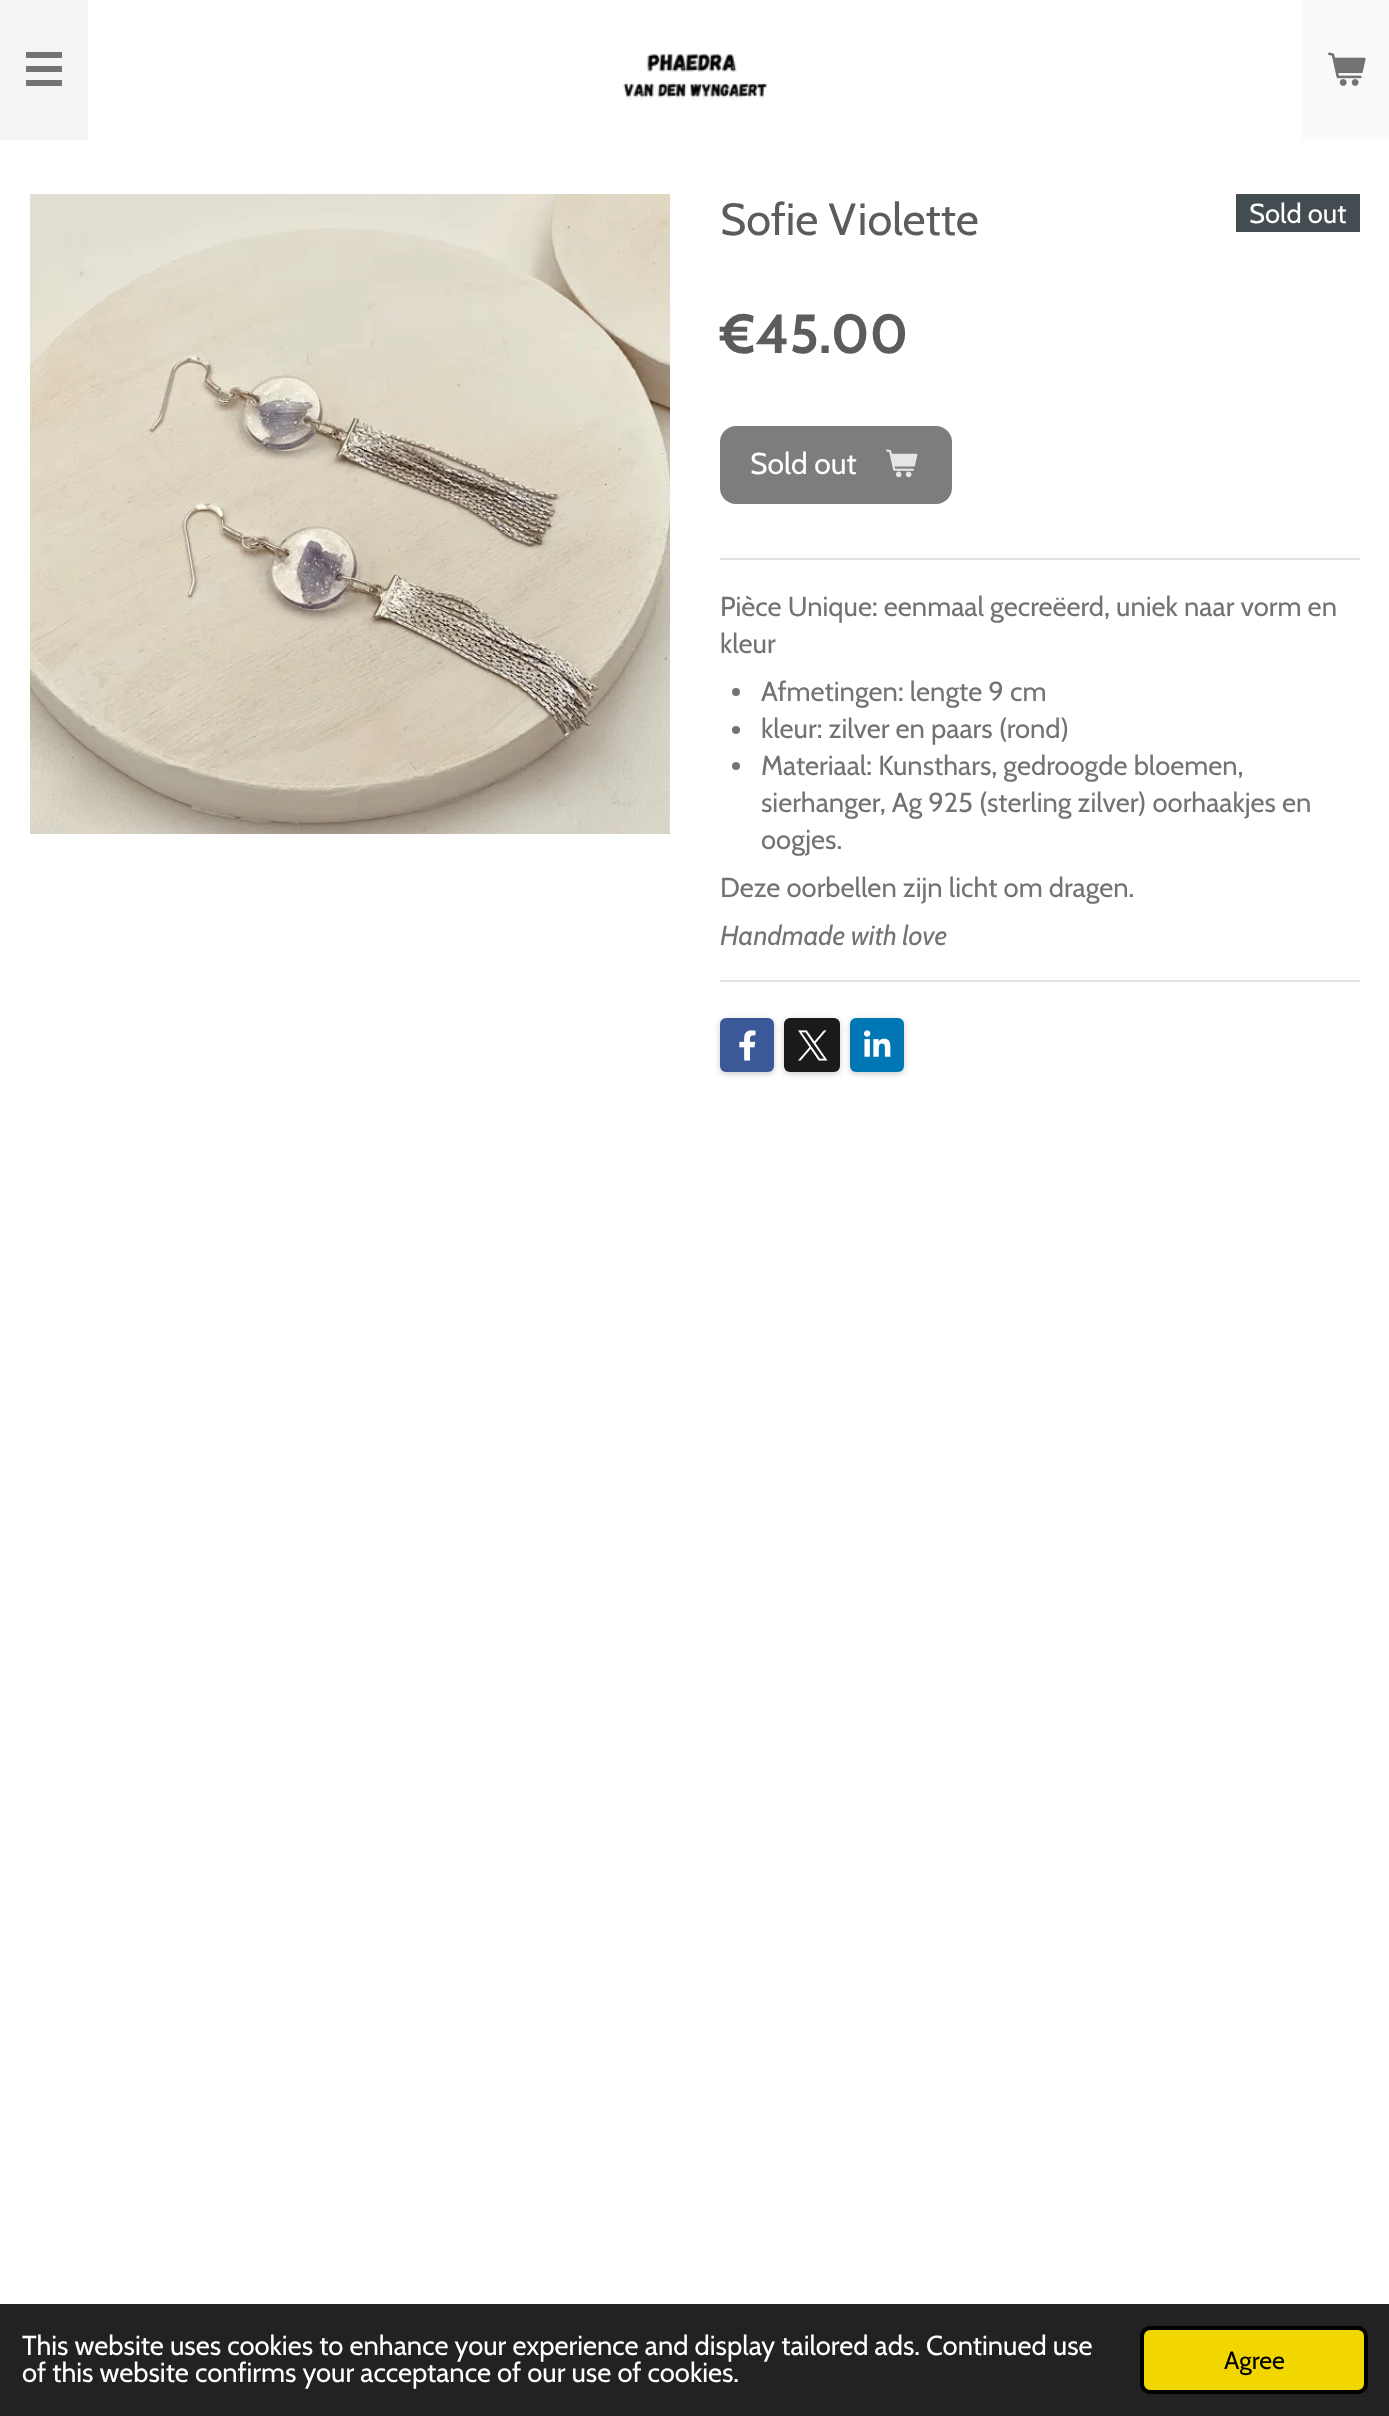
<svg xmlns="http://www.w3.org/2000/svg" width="1389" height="2416">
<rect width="100%" height="100%" fill="#fff"/>
<rect width="88" height="140" fill="#f5f5f5"/>
<rect x="26" y="66" width="36" height="6" fill="#737373"/>
<rect x="26" y="52" width="36" height="6" fill="#737373"/>
<rect x="26" y="80" width="36" height="6" fill="#737373"/>
<image x="622" y="54" width="145" height="46" href="media/1.png"/>
<rect x="1302" width="87" height="140" fill="#fafafa"/>
<image x="1328" y="52" width="38" height="34" href="media/2.png"/>
<image x="30" y="194" width="640" height="640" href="media/3.png"/>
<text x="720" y="235" style="font-family:Cabin;font-size:45px;fill:#5c5c5c">Sofie Violette</text>
<rect x="1236" y="194" width="124" height="38" fill="#424c51"/>
<text x="1249" y="223" style="font-family:Cabin;font-size:27.4px;fill:#fff">Sold out</text>
<text x="720" y="353" style="font-family:Cabin;font-size:55px;font-weight:bold;fill:#5c5c5c">€45.00</text>
<rect x="720" y="426" width="232" height="78" rx="16" fill="#7d7d7d"/>
<text x="750" y="474" style="font-family:Cabin;font-size:30px;fill:#fff">Sold out</text>
<image x="886" y="449" width="32" height="29" href="media/4.png"/>
<rect x="720" y="558" width="640" height="2" fill="#e3e3e3"/>
<text x="720" y="616" style="font-family:Cabin;font-size:27.4px;fill:#737373">Pièce Unique: eenmaal gecreëerd, uniek naar vorm en</text>
<text x="720" y="653" style="font-family:Cabin;font-size:27.4px;fill:#737373">kleur</text>
<circle cx="736" cy="692" r="4" fill="#737373"/>
<text x="761" y="701" style="font-family:Cabin;font-size:27.4px;fill:#737373">Afmetingen: lengte 9 cm</text>
<circle cx="736" cy="730" r="4" fill="#737373"/>
<text x="761" y="738" style="font-family:Cabin;font-size:27.4px;fill:#737373">kleur: zilver en paars (rond)</text>
<circle cx="736" cy="766" r="4" fill="#737373"/>
<text x="761" y="775" style="font-family:Cabin;font-size:27.4px;fill:#737373">Materiaal: Kunsthars, gedroogde bloemen,</text>
<text x="761" y="812" style="font-family:Cabin;font-size:27.4px;fill:#737373">sierhanger, Ag 925 (sterling zilver) oorhaakjes en</text>
<text x="761" y="849" style="font-family:Cabin;font-size:27.4px;fill:#737373">oogjes.</text>
<text x="720" y="897" style="font-family:Cabin;font-size:27.4px;fill:#737373">Deze oorbellen zijn licht om dragen.</text>
<text x="720" y="945" style="font-family:Cabin;font-size:27.4px;font-style:italic;fill:#737373">Handmade with love</text>
<rect x="720" y="980" width="640" height="2" fill="#e3e3e3"/>
<rect x="720" y="1020" width="54" height="54" rx="6" fill="#00000033" filter="blur(3px)"/>
<rect x="720" y="1018" width="54" height="54" rx="6" fill="#3b5998"/>
<image x="739" y="1030" width="17" height="31" href="media/5.png"/>
<rect x="784" y="1020" width="56" height="54" rx="6" fill="#00000033" filter="blur(3px)"/>
<rect x="784" y="1018" width="56" height="54" rx="6" fill="#1a1a1a"/>
<image x="798" y="1030" width="30" height="31" href="media/6.png"/>
<rect x="850" y="1020" width="54" height="54" rx="6" fill="#00000033" filter="blur(3px)"/>
<rect x="850" y="1018" width="54" height="54" rx="6" fill="#0077b5"/>
<image x="864" y="1030" width="27" height="27" href="media/7.png"/>
<rect y="2304" width="1389" height="112" fill="#222"/>
<text x="22" y="2355" style="font-family:Cabin;font-size:27.4px;fill:#fff">This website uses cookies to enhance your experience and display tailored ads. Continued use</text>
<text x="22" y="2382" style="font-family:Cabin;font-size:27.4px;fill:#fff">of this website confirms your acceptance of our use of cookies.</text>
<rect x="1142" y="2328" width="224" height="64" rx="8" fill="#f1d600" stroke="#000" stroke-width="4"/>
<text x="1224" y="2369" style="font-family:Cabin;font-size:25px;fill:#000">Agree</text>
</svg>
